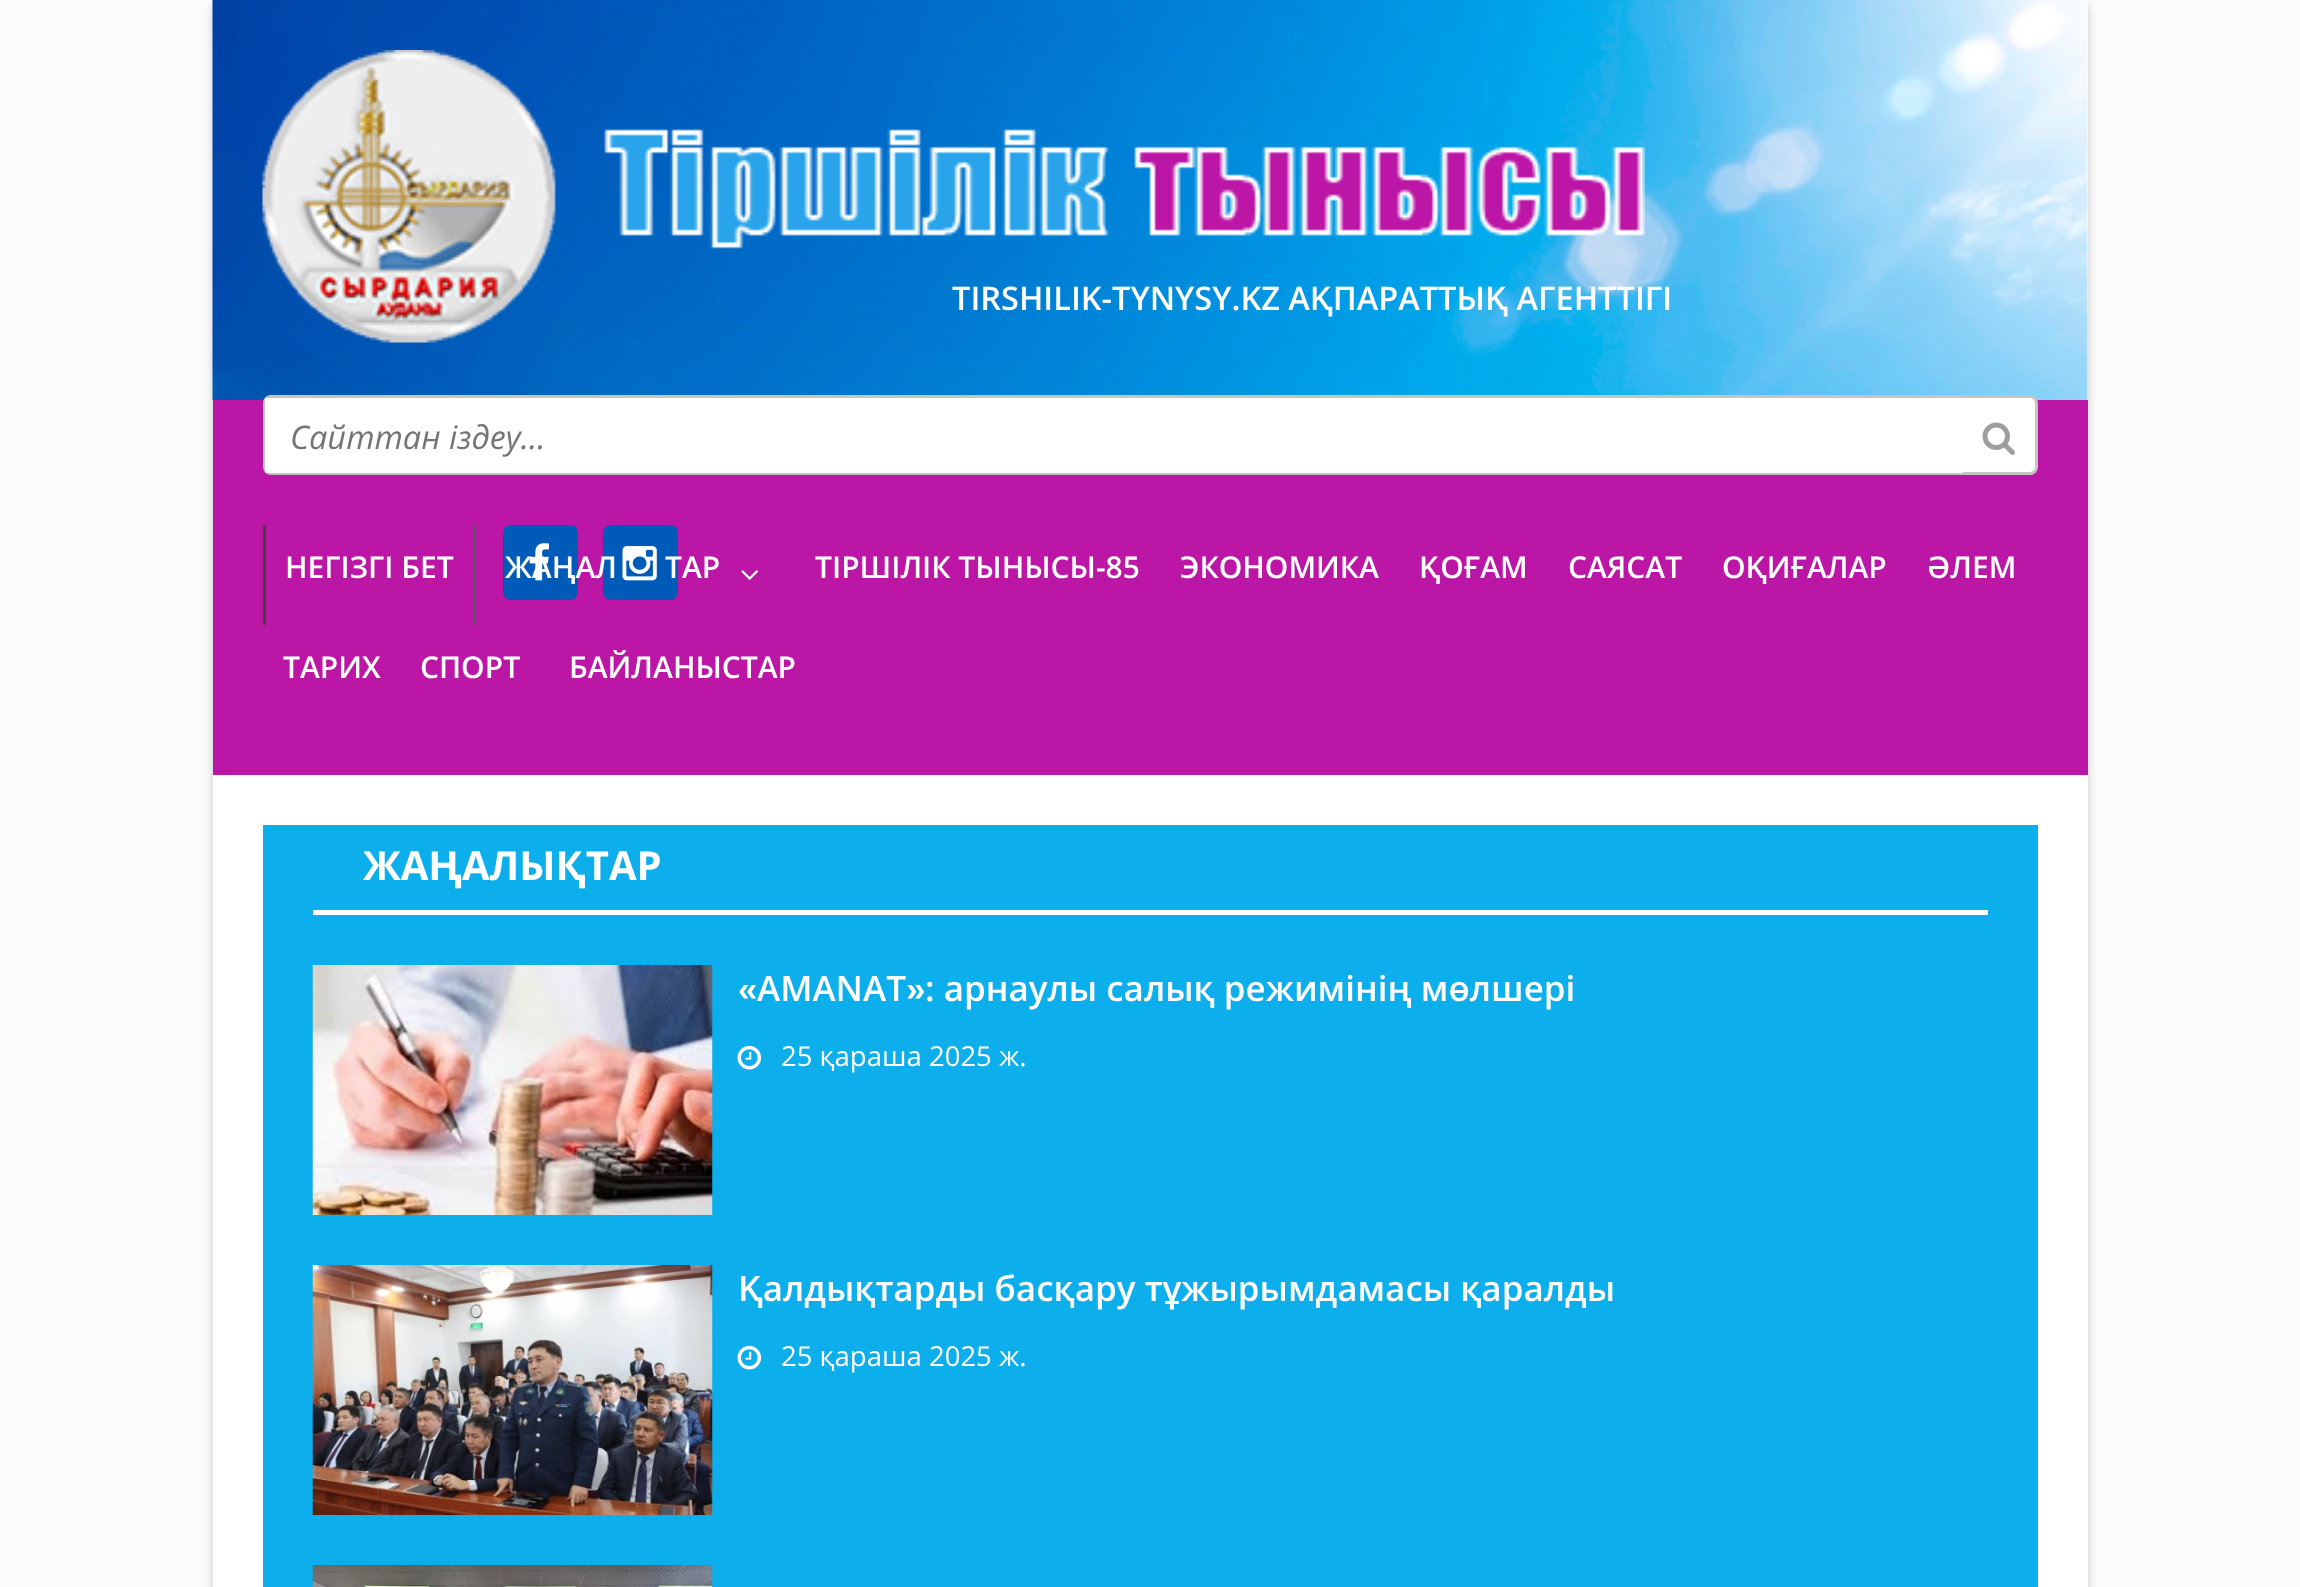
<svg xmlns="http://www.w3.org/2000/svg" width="2300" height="1587">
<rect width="100%" height="100%" fill="#fbfbfb"/>
<rect x="213" y="5" width="1875" height="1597" fill="#00000033" filter="blur(5px)"/>
<rect x="213" width="1875" height="1587" fill="#fff"/>
<image x="212" y="0" width="1876" height="400" href="media/1.png"/>
<image x="262" y="50" width="1383" height="293" href="media/2.png"/>
<text x="952" y="310" style="font-family:Open Sans;font-size:32.5px;font-weight:600;fill:#fff">TIRSHILIK-TYNYSY.KZ АҚПАРАТТЫҚ АГЕНТТІГІ</text>
<rect x="213" y="400" width="1875" height="375" fill="#bb16a6"/>
<rect x="264.5" y="396.5" width="1772" height="77" rx="6.5" fill="#fff" stroke="#c5c5c5" stroke-width="3"/>
<rect x="265" y="398" width="1698" height="75" fill="#fff"/>
<text x="290" y="449" style="font-family:Open Sans;font-size:32.5px;font-style:italic;fill:#757575">Сайттан іздеу...</text>
<image x="1982" y="422" width="33" height="33" href="media/3.png"/>
<rect x="503" y="525" width="75" height="75" rx="8" fill="#005bb8"/>
<image x="529" y="543" width="20" height="38" href="media/4.png"/>
<rect x="603" y="525" width="75" height="75" rx="8" fill="#005bb8"/>
<image x="622" y="546" width="35" height="35" href="media/5.png"/>
<rect x="473" y="525" width="3" height="100" fill="#5a5959"/>
<rect x="263" y="525" width="3" height="100" fill="#414141"/>
<text x="285" y="578" style="font-family:Open Sans;font-size:30px;font-weight:600;fill:#fff">НЕГІЗГІ БЕТ</text>
<text x="505" y="578" style="font-family:Open Sans;font-size:30px;font-weight:600;fill:#fff">ЖАҢАЛ</text>
<text x="665" y="578" style="font-family:Open Sans;font-size:30px;font-weight:600;fill:#fff">ТАР</text>
<image x="741" y="570" width="17" height="10" href="media/6.png"/>
<text x="815" y="578" style="font-family:Open Sans;font-size:30px;font-weight:600;fill:#fff">ТІРШІЛІК ТЫНЫСЫ-85</text>
<text x="1180" y="578" style="font-family:Open Sans;font-size:30px;font-weight:600;fill:#fff">ЭКОНОМИКА</text>
<text x="1419" y="578" style="font-family:Open Sans;font-size:30px;font-weight:600;fill:#fff">ҚОҒАМ</text>
<text x="1568" y="578" style="font-family:Open Sans;font-size:30px;font-weight:600;fill:#fff">САЯСАТ</text>
<text x="1722" y="578" style="font-family:Open Sans;font-size:30px;font-weight:600;fill:#fff">ОҚИҒАЛАР</text>
<text x="1927" y="578" style="font-family:Open Sans;font-size:30px;font-weight:600;fill:#fff">ӘЛЕМ</text>
<text x="283" y="678" style="font-family:Open Sans;font-size:30px;font-weight:600;fill:#fff">ТАРИХ</text>
<text x="420" y="678" style="font-family:Open Sans;font-size:30px;font-weight:600;fill:#fff">СПОРТ</text>
<text x="569" y="678" style="font-family:Open Sans;font-size:30px;font-weight:600;fill:#fff">БАЙЛАНЫСТАР</text>
<rect x="263" y="825" width="1775" height="762" fill="#0caeeb"/>
<rect x="313" y="910" width="1675" height="5" fill="#fff"/>
<text x="363" y="880" style="font-family:Open Sans;font-size:40px;font-weight:bold;fill:#fff">ЖАҢАЛЫҚТАР</text>
<image x="312" y="965" width="401" height="250" href="media/7.png"/>
<text x="738" y="1001" style="font-family:Liberation Sans;font-size:35px;font-weight:bold;fill:#fff">«</text>
<text x="757" y="1001" style="font-family:Open Sans;font-size:35px;font-weight:600;fill:#fff">AMANAT</text>
<text x="906" y="1001" style="font-family:Liberation Sans;font-size:35px;font-weight:bold;fill:#fff">»</text>
<text x="925" y="1001" style="font-family:Open Sans;font-size:35px;font-weight:600;fill:#fff">: арнаулы салық режимінің мөлшері</text>
<image x="737" y="1045" width="25" height="25" href="media/8.png"/>
<text x="781" y="1066" style="font-family:Open Sans;font-size:27.5px;fill:#fff">25 қараша 2025 ж.</text>
<image x="312" y="1265" width="401" height="250" href="media/9.png"/>
<text x="738" y="1301" style="font-family:Open Sans;font-size:35px;font-weight:600;fill:#fff">Қалдықтарды басқару тұжырымдамасы қаралды</text>
<image x="737" y="1345" width="25" height="25" href="media/8.png"/>
<text x="781" y="1366" style="font-family:Open Sans;font-size:27.5px;fill:#fff">25 қараша 2025 ж.</text>
<image x="312" y="1565" width="401" height="22" href="media/10.png"/>
</svg>
